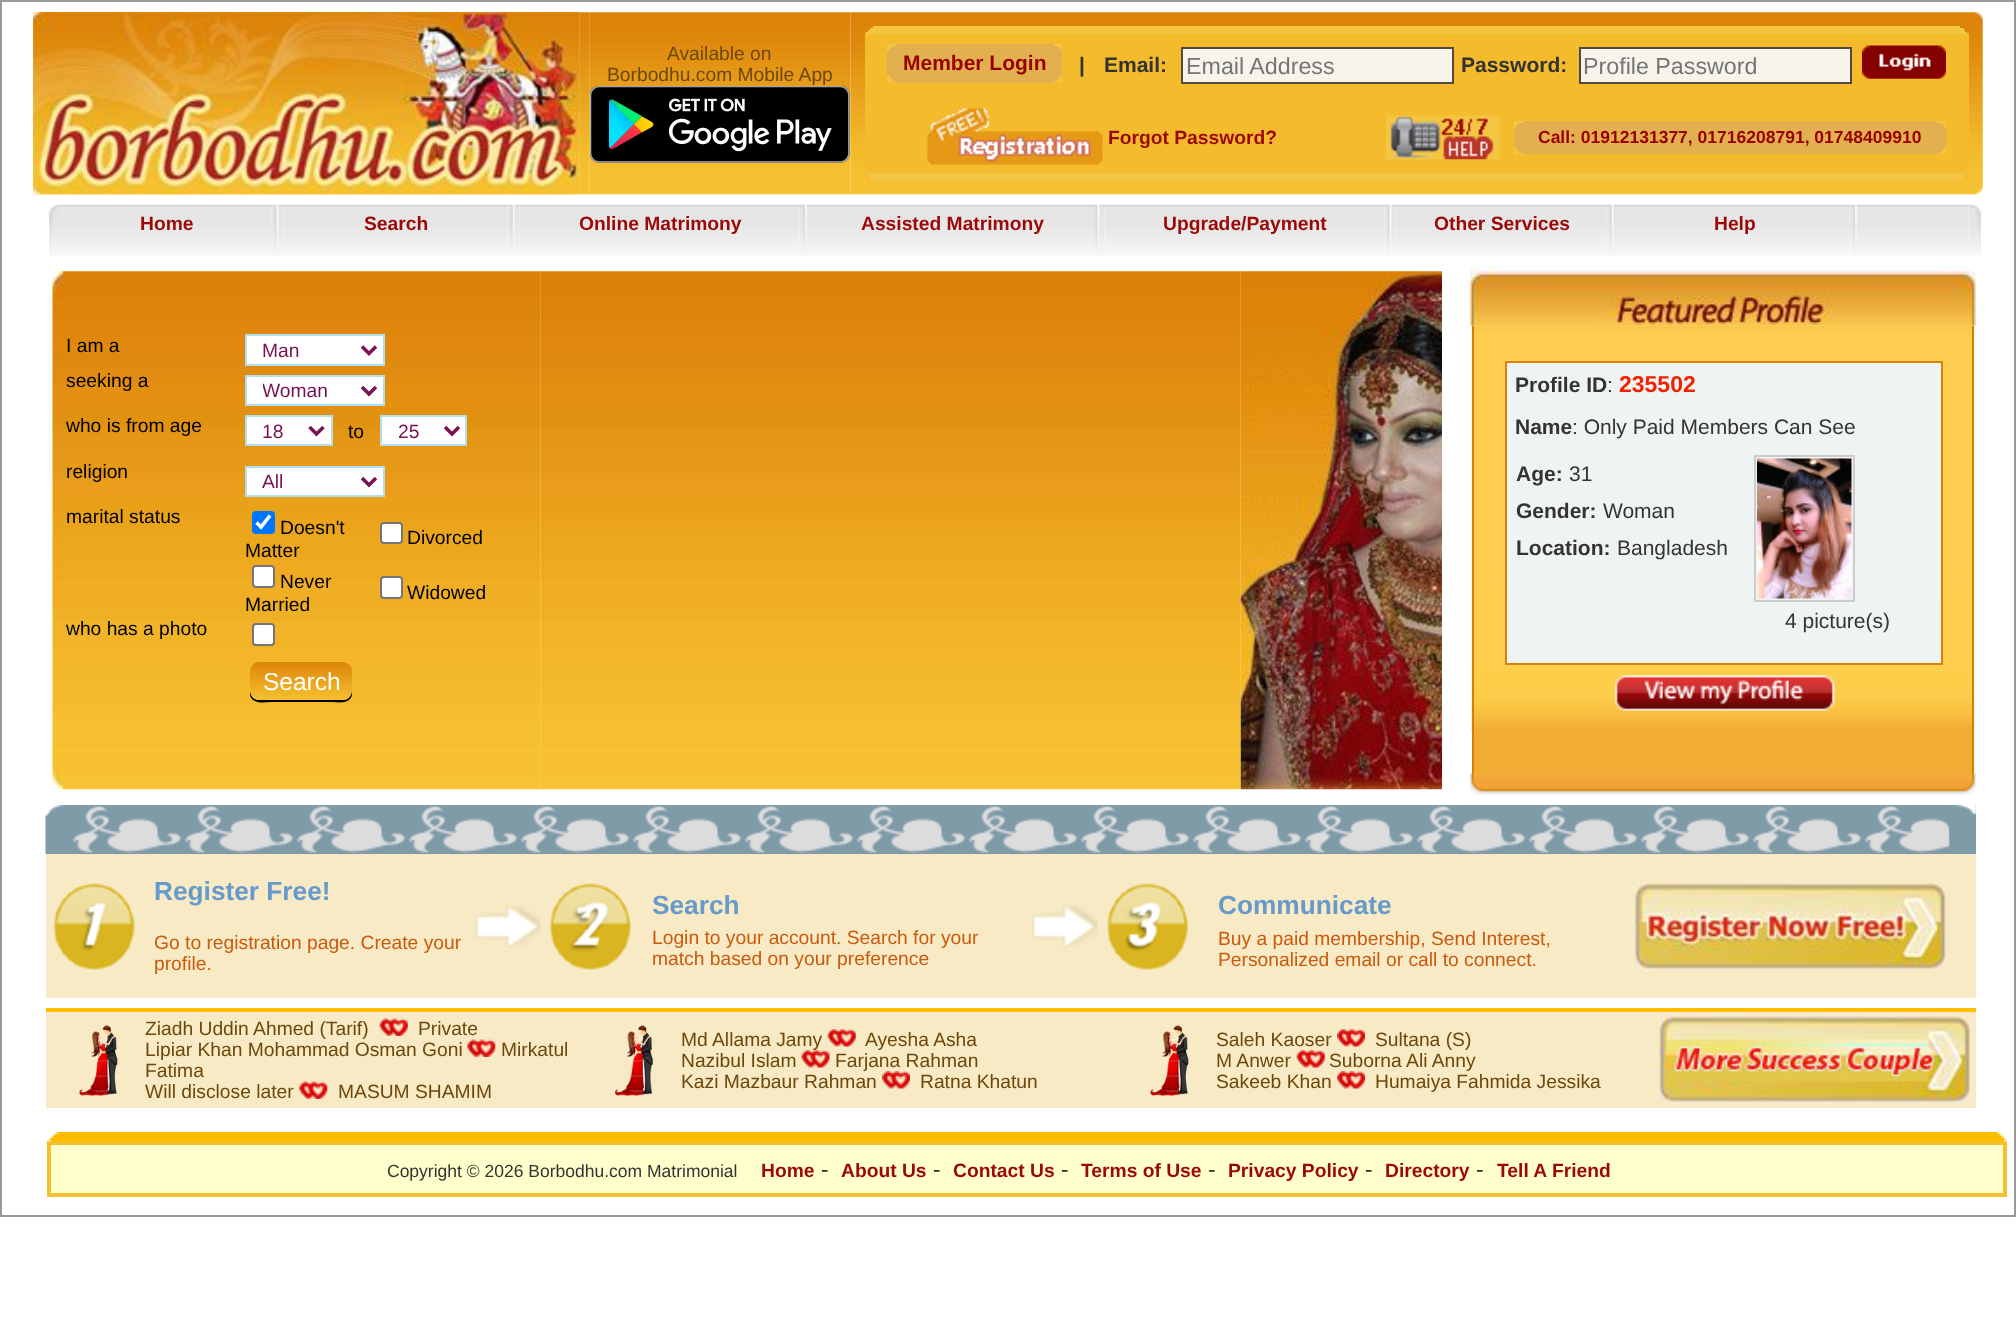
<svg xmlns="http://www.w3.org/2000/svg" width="2016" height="1338">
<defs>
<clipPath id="clip1"><rect x="263" y="378" width="92" height="25"/></clipPath>
<linearGradient id="g1" gradientUnits="userSpaceOnUse" x1="301" y1="662" x2="301" y2="700"><stop offset="0" stop-color="#dd8509"/><stop offset="1" stop-color="#f5c030"/></linearGradient>
</defs>
<rect width="100%" height="100%" fill="#fff"/>
<rect width="2016" height="2" fill="#999"/>
<rect x="2014" width="2" height="1216" fill="#999"/>
<rect y="1215" width="2016" height="2" fill="#999"/>
<rect width="2" height="1216" fill="#999"/>
<image x="33" y="12" width="547" height="183" href="media/1.png"/>
<image x="579" y="12" width="11" height="183" href="media/3.png"/>
<image x="33" y="12" width="547" height="183" href="media/2.png"/>
<image x="589" y="12" width="262" height="183" href="media/4.png"/>
<text x="667" y="60" style="font-family:Liberation Sans;font-size:19.25px;fill:#6e480b">Available on</text>
<text x="607" y="81" style="font-family:Liberation Sans;font-size:19.25px;fill:#6e480b">Borbodhu.com Mobile App</text>
<image x="590" y="86" width="260" height="77" href="media/5.png"/>
<image x="850" y="12" width="1124" height="183" href="media/6.png"/>
<rect x="865" y="32" width="1104" height="1" fill="#dc8409"/>
<rect x="873" y="26" width="1087" height="2" fill="#f4c542"/>
<rect x="870" y="28" width="1094" height="2" fill="#f4c542"/>
<rect x="868" y="30" width="1097" height="2" fill="#f4c542"/>
<rect x="865" y="33" width="1104" height="147" fill="#f4bb2c"/>
<rect x="866" y="32" width="1101" height="2" fill="#f4c542"/>
<rect x="866" y="173" width="1101" height="2" fill="#f4c542"/>
<rect x="868" y="175" width="1097" height="2" fill="#f4c542"/>
<rect x="870" y="177" width="1094" height="2" fill="#f4c542"/>
<rect x="873" y="179" width="1087" height="2" fill="#f4c542"/>
<rect x="887" y="51" width="175" height="24" fill="#e2b04f"/>
<rect x="887" y="44" width="175" height="7" fill="#f4c542"/>
<rect x="896" y="44" width="158" height="2" fill="#e2b04f"/>
<rect x="893" y="46" width="164" height="1" fill="#e2b04f"/>
<rect x="891" y="47" width="168" height="2" fill="#e2b04f"/>
<rect x="889" y="49" width="172" height="2" fill="#e2b04f"/>
<text x="903" y="70" style="font-family:Liberation Sans;font-size:21px;font-weight:bold;fill:#900">Member Login</text>
<rect x="887" y="75" width="175" height="7" fill="#f4c542"/>
<rect x="889" y="75" width="172" height="2" fill="#e2b04f"/>
<rect x="891" y="77" width="168" height="2" fill="#e2b04f"/>
<rect x="893" y="79" width="164" height="2" fill="#e2b04f"/>
<rect x="896" y="81" width="158" height="2" fill="#e2b04f"/>
<text x="1079" y="72" style="font-family:Liberation Sans;font-size:21px;font-weight:bold;fill:#333">|</text>
<text x="1104" y="72" style="font-family:Liberation Sans;font-size:21px;font-weight:bold;fill:#333">Email:</text>
<rect x="1182" y="48" width="271" height="35" fill="#f7f4ec" stroke="#534a3d" stroke-width="2"/>
<text x="1186" y="74" style="font-family:Liberation Sans;font-size:23.25px;fill:#757575">Email Address</text>
<text x="1461" y="72" style="font-family:Liberation Sans;font-size:21px;font-weight:bold;fill:#333">Password:</text>
<rect x="1580" y="48" width="271" height="35" fill="#f7f4ec" stroke="#534a3d" stroke-width="2"/>
<text x="1583" y="74" style="font-family:Liberation Sans;font-size:23.25px;fill:#757575">Profile Password</text>
<image x="1862" y="45" width="84" height="34" href="media/7.png"/>
<image x="927" y="108" width="176" height="57" href="media/8.png"/>
<text x="1108" y="144" style="font-family:Liberation Sans;font-size:19.25px;font-weight:bold;fill:#9c0808">Forgot Password?</text>
<image x="1386" y="115" width="114" height="45" href="media/9.png"/>
<rect x="1514" y="128" width="432" height="19" fill="#e2b04f"/>
<rect x="1514" y="121" width="432" height="7" fill="#f4c542"/>
<rect x="1523" y="121" width="414" height="2" fill="#e2b04f"/>
<rect x="1519" y="123" width="422" height="1" fill="#e2b04f"/>
<rect x="1517" y="124" width="426" height="2" fill="#e2b04f"/>
<rect x="1516" y="126" width="428" height="2" fill="#e2b04f"/>
<text x="1538" y="143" style="font-family:Liberation Sans;font-size:17.5px;font-weight:bold;fill:#900">Call: 01912131377, 01716208791, 01748409910</text>
<rect x="1514" y="147" width="432" height="7" fill="#f4c542"/>
<rect x="1516" y="147" width="428" height="2" fill="#e2b04f"/>
<rect x="1517" y="149" width="426" height="2" fill="#e2b04f"/>
<rect x="1519" y="151" width="422" height="2" fill="#e2b04f"/>
<rect x="1523" y="153" width="414" height="1" fill="#e2b04f"/>
<image x="1974" y="12" width="9" height="183" href="media/10.png"/>
<image x="49" y="204" width="12" height="52" href="media/11.png"/>
<image x="61" y="204" width="211" height="52" href="media/12.png"/>
<text x="140" y="230" style="font-family:Liberation Sans;font-size:19.25px;font-weight:bold;fill:#9c0808">Home</text>
<image x="283" y="204" width="225" height="52" href="media/14.png"/>
<image x="271" y="204" width="13" height="52" href="media/13.png"/>
<text x="364" y="230" style="font-family:Liberation Sans;font-size:19.25px;font-weight:bold;fill:#9c0808">Search</text>
<image x="519" y="204" width="281" height="52" href="media/16.png"/>
<image x="507" y="204" width="13" height="52" href="media/15.png"/>
<text x="579" y="230" style="font-family:Liberation Sans;font-size:19.25px;font-weight:bold;fill:#9c0808">Online Matrimony</text>
<image x="800" y="204" width="12" height="52" href="media/17.png"/>
<image x="812" y="204" width="280" height="52" href="media/18.png"/>
<text x="861" y="230" style="font-family:Liberation Sans;font-size:19.25px;font-weight:bold;fill:#9c0808">Assisted Matrimony</text>
<image x="1092" y="204" width="12" height="52" href="media/19.png"/>
<image x="1104" y="204" width="281" height="52" href="media/20.png"/>
<text x="1163" y="230" style="font-family:Liberation Sans;font-size:19.25px;font-weight:bold;fill:#9c0808">Upgrade/Payment</text>
<image x="1396" y="204" width="211" height="52" href="media/22.png"/>
<image x="1384" y="204" width="13" height="52" href="media/21.png"/>
<text x="1434" y="230" style="font-family:Liberation Sans;font-size:19.25px;font-weight:bold;fill:#9c0808">Other Services</text>
<image x="1618" y="204" width="232" height="52" href="media/24.png"/>
<image x="1606" y="204" width="13" height="52" href="media/23.png"/>
<text x="1714" y="230" style="font-family:Liberation Sans;font-size:19.25px;font-weight:bold;fill:#9c0808">Help</text>
<image x="1850" y="204" width="12" height="52" href="media/17.png"/>
<image x="1862" y="204" width="107" height="52" href="media/25.png"/>
<image x="1969" y="204" width="12" height="52" href="media/26.png"/>
<image x="52" y="271" width="11" height="519" href="media/27.png"/>
<image x="63" y="271" width="478" height="519" href="media/28.png"/>
<text x="66" y="352" style="font-family:Liberation Sans;font-size:19.25px;fill:#000">I am a</text>
<rect x="246" y="335" width="138" height="30" fill="#fff" stroke="#b2dfee" stroke-width="2"/>
<path d="M362 346.5l7 7l7-7" fill="none" stroke="#781351" stroke-width="3.5"/>
<text x="262" y="357" style="font-family:Liberation Sans;font-size:19.25px;fill:#781351">Man</text>
<text x="66" y="387" style="font-family:Liberation Sans;font-size:19.25px;fill:#000">seeking a</text>
<rect x="246" y="376" width="138" height="29" fill="#fff" stroke="#b2dfee" stroke-width="2"/>
<path d="M362 387l7 7l7-7" fill="none" stroke="#781351" stroke-width="3.5"/>
<g clip-path="url(#clip1)">
<text x="262" y="397" style="font-family:Liberation Sans;font-size:19.25px;fill:#781351">Woman</text>
</g>
<text x="66" y="432" style="font-family:Liberation Sans;font-size:19.25px;fill:#000">who is from age</text>
<rect x="246" y="416" width="86" height="29" fill="#fff" stroke="#b2dfee" stroke-width="2"/>
<path d="M309.5 427l7 7l7-7" fill="none" stroke="#781351" stroke-width="3.5"/>
<text x="262" y="438" style="font-family:Liberation Sans;font-size:19.25px;fill:#781351">18</text>
<text x="348" y="438" style="font-family:Liberation Sans;font-size:19.25px;fill:#000">to</text>
<rect x="381" y="416" width="85" height="29" fill="#fff" stroke="#b2dfee" stroke-width="2"/>
<path d="M445 427l7 7l7-7" fill="none" stroke="#781351" stroke-width="3.5"/>
<text x="398" y="438" style="font-family:Liberation Sans;font-size:19.25px;fill:#781351">25</text>
<text x="66" y="478" style="font-family:Liberation Sans;font-size:19.25px;fill:#000">religion</text>
<rect x="246" y="467" width="138" height="29" fill="#fff" stroke="#b2dfee" stroke-width="2"/>
<path d="M362 478l7 7l7-7" fill="none" stroke="#781351" stroke-width="3.5"/>
<text x="262" y="488" style="font-family:Liberation Sans;font-size:19.25px;fill:#781351">All</text>
<text x="66" y="523" style="font-family:Liberation Sans;font-size:19.25px;fill:#000">marital status</text>
<rect x="252" y="511" width="23" height="23" rx="4" fill="#0075ff"/>
<path d="M256.5 522.5l4.5 4.5l9-11.5" fill="none" stroke="#fff" stroke-width="3.6"/>
<text x="280" y="534" style="font-family:Liberation Sans;font-size:19.25px;fill:#000">Doesn't</text>
<text x="245" y="557" style="font-family:Liberation Sans;font-size:19.25px;fill:#000">Matter</text>
<rect x="381" y="523" width="21" height="20" rx="3" fill="#fff" stroke="#767676" stroke-width="2"/>
<text x="407" y="544" style="font-family:Liberation Sans;font-size:19.25px;fill:#000">Divorced</text>
<rect x="253" y="566" width="21" height="21" rx="3" fill="#fff" stroke="#767676" stroke-width="2"/>
<text x="280" y="588" style="font-family:Liberation Sans;font-size:19.25px;fill:#000">Never</text>
<text x="245" y="611" style="font-family:Liberation Sans;font-size:19.25px;fill:#000">Married</text>
<rect x="381" y="577" width="21" height="21" rx="3" fill="#fff" stroke="#767676" stroke-width="2"/>
<text x="407" y="599" style="font-family:Liberation Sans;font-size:19.25px;fill:#000">Widowed</text>
<text x="66" y="635" style="font-family:Liberation Sans;font-size:19.25px;fill:#000">who has a photo</text>
<rect x="253" y="624" width="21" height="21" rx="3" fill="#fff" stroke="#767676" stroke-width="2"/>
<path d="M250 670v25c2 10 16 7 23 7h56c7 0 21 3 23-7v-25v14c0 6 0 14-7 16h-88c-7-2-7-10-7-16z" fill="#000"/>
<rect x="250" y="662" width="102" height="38" rx="9" fill="url(#g1)"/>
<text x="263" y="690" style="font-family:Liberation Sans;font-size:24.5px;fill:#fff">Search</text>
<image x="540" y="271" width="701" height="519" href="media/29.png"/>
<image x="1240" y="271" width="202" height="519" href="media/30.png"/>
<image x="1470" y="266" width="506" height="60" href="media/31.png"/>
<image x="1470" y="278" width="506" height="48" href="media/32.png"/>
<rect x="1474" y="733" width="498" height="41" fill="#f0ac33"/>
<image x="1471" y="325" width="503" height="409" href="media/33.png"/>
<rect x="1972" y="326" width="2" height="448" fill="#d77f00"/>
<rect x="1472" y="326" width="2" height="448" fill="#d77f00"/>
<rect x="1506" y="362" width="436" height="302" fill="#f0f3f4" stroke="#dc8208" stroke-width="2"/>
<text x="1515" y="392" style="font-family:Liberation Sans;font-size:21px;font-weight:bold;fill:#333">Profile ID</text>
<text x="1607" y="392" style="font-family:Liberation Sans;font-size:21px;fill:#333">:</text>
<text x="1619" y="392" style="font-family:Liberation Sans;font-size:23px;font-weight:bold;fill:#ef2200">235502</text>
<text x="1515" y="434" style="font-family:Liberation Sans;font-size:21px;font-weight:bold;fill:#333">Name</text>
<text x="1572" y="434" style="font-family:Liberation Sans;font-size:21px;fill:#333">: Only Paid Members Can See</text>
<text x="1516" y="481" style="font-family:Liberation Sans;font-size:21px;font-weight:bold;fill:#333">Age:</text>
<text x="1569" y="481" style="font-family:Liberation Sans;font-size:21px;fill:#333">31</text>
<text x="1516" y="518" style="font-family:Liberation Sans;font-size:21px;font-weight:bold;fill:#333">Gender:</text>
<text x="1603" y="518" style="font-family:Liberation Sans;font-size:21px;fill:#333">Woman</text>
<text x="1516" y="555" style="font-family:Liberation Sans;font-size:21px;font-weight:bold;fill:#333">Location:</text>
<text x="1617" y="555" style="font-family:Liberation Sans;font-size:21px;fill:#333">Bangladesh</text>
<rect x="1755" y="456" width="99" height="145" fill="none" stroke="#ccc" stroke-width="2"/>
<image x="1757" y="458" width="95" height="141" href="media/34.png"/>
<text x="1785" y="628" style="font-family:Liberation Sans;font-size:21px;fill:#333">4 picture(s)</text>
<image x="1614" y="675" width="221" height="36" href="media/35.png"/>
<image x="1470" y="773" width="506" height="22" href="media/36.png"/>
<rect x="64" y="805" width="1912" height="49" fill="#809ba8"/>
<image x="45" y="805" width="19" height="49" href="media/37.png"/>
<image x="73" y="806" width="1877" height="47" href="media/38.png"/>
<image x="1949" y="805" width="27" height="42" href="media/39.png"/>
<rect x="46" y="854" width="1930" height="144" fill="#f7eac5"/>
<image x="49" y="880" width="88" height="93" href="media/40.png"/>
<text x="154" y="900" style="font-family:Liberation Sans;font-size:26.25px;font-weight:bold;fill:#69c">Register Free!</text>
<text x="154" y="949" style="font-family:Liberation Sans;font-size:19.25px;fill:#cb590e">Go to registration page. Create your</text>
<text x="154" y="970" style="font-family:Liberation Sans;font-size:19.25px;fill:#cb590e">profile.</text>
<image x="475" y="905" width="66" height="43" href="media/41.png"/>
<image x="546" y="880" width="87" height="93" href="media/42.png"/>
<text x="652" y="914" style="font-family:Liberation Sans;font-size:26.25px;font-weight:bold;fill:#69c">Search</text>
<text x="652" y="944" style="font-family:Liberation Sans;font-size:19.25px;fill:#cb590e">Login to your account. Search for your</text>
<text x="652" y="965" style="font-family:Liberation Sans;font-size:19.25px;fill:#cb590e">match based on your preference</text>
<image x="1032" y="905" width="66" height="43" href="media/43.png"/>
<image x="1103" y="880" width="87" height="93" href="media/44.png"/>
<text x="1218" y="914" style="font-family:Liberation Sans;font-size:26.25px;font-weight:bold;fill:#69c">Communicate</text>
<text x="1218" y="945" style="font-family:Liberation Sans;font-size:19.25px;fill:#cb590e">Buy a paid membership, Send Interest,</text>
<text x="1218" y="966" style="font-family:Liberation Sans;font-size:19.25px;fill:#cb590e">Personalized email or call to connect.</text>
<image x="1632" y="882" width="316" height="89" href="media/45.png"/>
<rect x="46" y="1012" width="1930" height="96" fill="#f7eac5"/>
<rect x="46" y="1008" width="1930" height="4" fill="#ffbd00"/>
<image x="79" y="1025" width="39" height="71" href="media/46.png"/>
<text x="145" y="1035" style="font-family:Liberation Sans;font-size:19.25px;fill:#6e480b">Ziadh Uddin Ahmed (Tarif)</text>
<image x="379" y="1018" width="29" height="18" href="media/47.png"/>
<text x="418" y="1035" style="font-family:Liberation Sans;font-size:19.25px;fill:#6e480b">Private</text>
<text x="145" y="1056" style="font-family:Liberation Sans;font-size:19.25px;fill:#6e480b">Lipiar Khan Mohammad Osman Goni</text>
<image x="467" y="1039" width="29" height="18" href="media/48.png"/>
<text x="501" y="1056" style="font-family:Liberation Sans;font-size:19.25px;fill:#6e480b">Mirkatul</text>
<text x="145" y="1077" style="font-family:Liberation Sans;font-size:19.25px;fill:#6e480b">Fatima</text>
<text x="145" y="1098" style="font-family:Liberation Sans;font-size:19.25px;fill:#6e480b">Will disclose later</text>
<image x="299" y="1081" width="29" height="18" href="media/48.png"/>
<text x="338" y="1098" style="font-family:Liberation Sans;font-size:19.25px;fill:#6e480b">MASUM SHAMIM</text>
<image x="615" y="1025" width="38" height="71" href="media/49.png"/>
<text x="681" y="1046" style="font-family:Liberation Sans;font-size:19.25px;fill:#6e480b">Md Allama Jamy</text>
<image x="827" y="1029" width="29" height="18" href="media/50.png"/>
<text x="865" y="1046" style="font-family:Liberation Sans;font-size:19.25px;fill:#6e480b">Ayesha Asha</text>
<text x="681" y="1067" style="font-family:Liberation Sans;font-size:19.25px;fill:#6e480b">Nazibul Islam</text>
<image x="801" y="1050" width="29" height="18" href="media/51.png"/>
<text x="835" y="1067" style="font-family:Liberation Sans;font-size:19.25px;fill:#6e480b">Farjana Rahman</text>
<text x="681" y="1088" style="font-family:Liberation Sans;font-size:19.25px;fill:#6e480b">Kazi Mazbaur Rahman</text>
<image x="882" y="1071" width="28" height="18" href="media/52.png"/>
<text x="920" y="1088" style="font-family:Liberation Sans;font-size:19.25px;fill:#6e480b">Ratna Khatun</text>
<image x="1150" y="1025" width="39" height="71" href="media/46.png"/>
<text x="1216" y="1046" style="font-family:Liberation Sans;font-size:19.25px;fill:#6e480b">Saleh Kaoser</text>
<image x="1337" y="1029" width="28" height="18" href="media/52.png"/>
<text x="1375" y="1046" style="font-family:Liberation Sans;font-size:19.25px;fill:#6e480b">Sultana (S)</text>
<text x="1216" y="1067" style="font-family:Liberation Sans;font-size:19.25px;fill:#6e480b">M Anwer</text>
<image x="1296" y="1050" width="29" height="18" href="media/53.png"/>
<text x="1329" y="1067" style="font-family:Liberation Sans;font-size:19.25px;fill:#6e480b">Suborna Ali Anny</text>
<text x="1216" y="1088" style="font-family:Liberation Sans;font-size:19.25px;fill:#6e480b">Sakeeb Khan</text>
<image x="1337" y="1071" width="28" height="18" href="media/52.png"/>
<text x="1375" y="1088" style="font-family:Liberation Sans;font-size:19.25px;fill:#6e480b">Humaiya Fahmida Jessika</text>
<image x="1657" y="1015" width="315" height="89" href="media/54.png"/>
<rect x="58" y="1132" width="1939" height="2" fill="#ffbd00"/>
<rect x="1997" y="1132" width="2" height="2" fill="#ffde7f"/>
<rect x="56" y="1132" width="2" height="2" fill="#ffde7f"/>
<rect x="54" y="1134" width="1946" height="2" fill="#ffbd00"/>
<rect x="2000" y="1134" width="2" height="2" fill="#ffde7f"/>
<rect x="53" y="1134" width="2" height="2" fill="#ffde7f"/>
<rect x="53" y="1136" width="1949" height="2" fill="#ffbd00"/>
<rect x="2002" y="1136" width="2" height="2" fill="#ffde7f"/>
<rect x="51" y="1136" width="2" height="2" fill="#ffde7f"/>
<rect x="49" y="1143" width="1956" height="52" fill="#ffc" stroke="#f6bf2f" stroke-width="4"/>
<rect x="51" y="1138" width="1953" height="4" fill="#ffbd00"/>
<rect x="2004" y="1138" width="2" height="4" fill="#ffde7f"/>
<rect x="49" y="1138" width="2" height="4" fill="#ffde7f"/>
<text x="387" y="1177" style="font-family:Liberation Sans;font-size:17.5px;fill:#333">Copyright © 2026 Borbodhu.com Matrimonial</text>
<text x="761" y="1177" style="font-family:Liberation Sans;font-size:19.25px;font-weight:bold;fill:#9c0808">Home</text>
<text x="821" y="1177" style="font-family:Liberation Sans;font-size:23px;fill:#333">-</text>
<text x="841" y="1177" style="font-family:Liberation Sans;font-size:19.25px;font-weight:bold;fill:#9c0808">About Us</text>
<text x="933" y="1177" style="font-family:Liberation Sans;font-size:23px;fill:#333">-</text>
<text x="953" y="1177" style="font-family:Liberation Sans;font-size:19.25px;font-weight:bold;fill:#9c0808">Contact Us</text>
<text x="1061" y="1177" style="font-family:Liberation Sans;font-size:23px;fill:#333">-</text>
<text x="1081" y="1177" style="font-family:Liberation Sans;font-size:19.25px;font-weight:bold;fill:#9c0808">Terms of Use</text>
<text x="1208" y="1177" style="font-family:Liberation Sans;font-size:23px;fill:#333">-</text>
<text x="1228" y="1177" style="font-family:Liberation Sans;font-size:19.25px;font-weight:bold;fill:#9c0808">Privacy Policy</text>
<text x="1365" y="1177" style="font-family:Liberation Sans;font-size:23px;fill:#333">-</text>
<text x="1385" y="1177" style="font-family:Liberation Sans;font-size:19.25px;font-weight:bold;fill:#9c0808">Directory</text>
<text x="1476" y="1177" style="font-family:Liberation Sans;font-size:23px;fill:#333">-</text>
<text x="1497" y="1177" style="font-family:Liberation Sans;font-size:19.25px;font-weight:bold;fill:#9c0808">Tell A Friend</text>
</svg>
